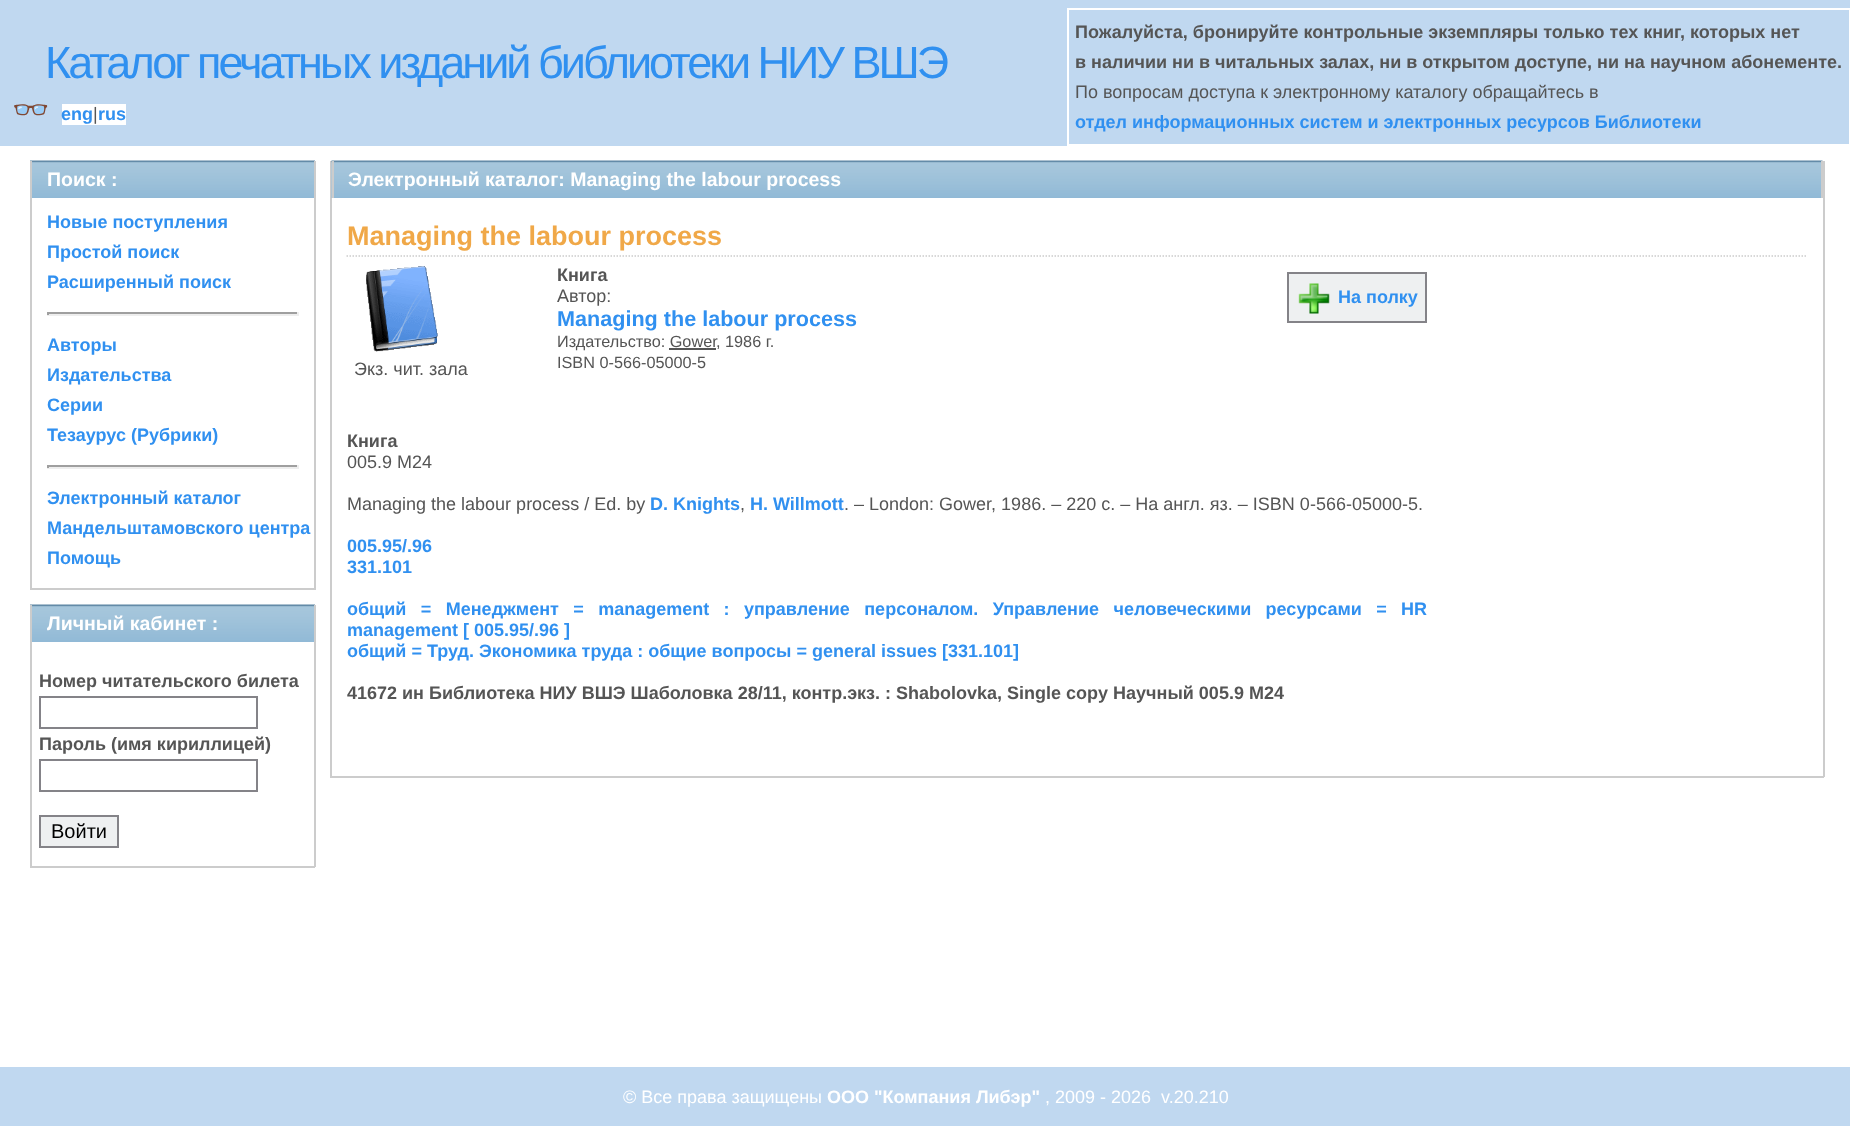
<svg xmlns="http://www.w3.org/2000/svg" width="1850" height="1126">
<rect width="100%" height="100%" fill="#fff"/>
<rect width="1850" height="146" fill="#c0d8f0"/>
<text x="45" y="78" style="font-family:Liberation Sans;font-size:45px;letter-spacing:-3px;fill:#3090f0">Каталог печатных изданий библиотеки НИУ ВШЭ</text>
<text x="12" y="120" style="font-family:Noto Color Emoji;font-size:30px;font-weight:bold;fill:#3090f0">👓</text>
<rect x="62" y="104" width="64" height="21" fill="#fff"/>
<text x="61" y="120" style="font-family:Liberation Sans;font-size:18px;font-weight:bold;fill:#3090f0">eng rus</text>
<text x="93" y="120" style="font-family:Liberation Sans;font-size:18px;fill:#555">|</text>
<rect x="1068" y="9" width="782" height="136" fill="none" stroke="#fff" stroke-width="2"/>
<text x="1075" y="38" style="font-family:Liberation Sans;font-size:18px;font-weight:bold;fill:#555">Пожалуйста, бронируйте контрольные экземпляры только тех книг, которых нет</text>
<text x="1075" y="68" style="font-family:Liberation Sans;font-size:18px;font-weight:bold;fill:#555">в наличии ни в читальных залах, ни в открытом доступе, ни на научном абонементе.</text>
<text x="1075" y="98" style="font-family:Liberation Sans;font-size:18px;fill:#555">По вопросам доступа к электронному каталогу обращайтесь в</text>
<text x="1075" y="128" style="font-family:Liberation Sans;font-size:18px;font-weight:bold;fill:#3090f0">отдел информационных систем и электронных ресурсов Библиотеки</text>
<image x="30" y="160" width="285" height="38" href="media/1.png"/>
<rect x="314" y="161" width="2" height="429" fill="#ccc"/>
<rect x="30" y="161" width="2" height="37" fill="#ccc"/>
<text x="47" y="186" style="font-family:Liberation Sans;font-size:19.5px;font-weight:bold;fill:#fff">Поиск :</text>
<rect x="30" y="588" width="285" height="2" fill="#ccc"/>
<rect x="30" y="198" width="2" height="392" fill="#ccc"/>
<text x="47" y="228" style="font-family:Liberation Sans;font-size:18px;font-weight:bold;fill:#3090f0">Новые поступления</text>
<text x="47" y="258" style="font-family:Liberation Sans;font-size:18px;font-weight:bold;fill:#3090f0">Простой поиск</text>
<text x="47" y="288" style="font-family:Liberation Sans;font-size:18px;font-weight:bold;fill:#3090f0">Расширенный поиск</text>
<rect x="47" y="312" width="252" height="2" fill="#9f9f9f"/>
<rect x="297" y="312" width="2" height="3" fill="#eee"/>
<rect x="47" y="314" width="252" height="2" fill="#eee"/>
<rect x="47" y="312" width="2" height="3" fill="#9f9f9f"/>
<text x="47" y="351" style="font-family:Liberation Sans;font-size:18px;font-weight:bold;fill:#3090f0">Авторы</text>
<text x="47" y="381" style="font-family:Liberation Sans;font-size:18px;font-weight:bold;fill:#3090f0">Издательства</text>
<text x="47" y="411" style="font-family:Liberation Sans;font-size:18px;font-weight:bold;fill:#3090f0">Серии</text>
<text x="47" y="441" style="font-family:Liberation Sans;font-size:18px;font-weight:bold;fill:#3090f0">Тезаурус (Рубрики)</text>
<rect x="47" y="465" width="252" height="2" fill="#9f9f9f"/>
<rect x="297" y="465" width="2" height="3" fill="#eee"/>
<rect x="47" y="467" width="252" height="2" fill="#eee"/>
<rect x="47" y="465" width="2" height="3" fill="#9f9f9f"/>
<text x="47" y="504" style="font-family:Liberation Sans;font-size:18px;font-weight:bold;fill:#3090f0">Электронный каталог</text>
<text x="47" y="534" style="font-family:Liberation Sans;font-size:18px;font-weight:bold;fill:#3090f0">Мандельштамовского центра</text>
<text x="47" y="564" style="font-family:Liberation Sans;font-size:18px;font-weight:bold;fill:#3090f0">Помощь</text>
<image x="30" y="604" width="285" height="38" href="media/1.png"/>
<rect x="314" y="605" width="2" height="262" fill="#ccc"/>
<rect x="30" y="605" width="2" height="37" fill="#ccc"/>
<text x="47" y="630" style="font-family:Liberation Sans;font-size:19.5px;font-weight:bold;fill:#fff">Личный кабинет :</text>
<rect x="30" y="866" width="285" height="2" fill="#ccc"/>
<rect x="30" y="642" width="2" height="225" fill="#ccc"/>
<text x="39" y="687" style="font-family:Liberation Sans;font-size:18px;font-weight:bold;fill:#555">Номер читательского билета</text>
<rect x="40" y="697" width="217" height="31" fill="none" stroke="#848388" stroke-width="2"/>
<text x="39" y="750" style="font-family:Liberation Sans;font-size:18px;font-weight:bold;fill:#555">Пароль (имя кириллицей)</text>
<rect x="40" y="760" width="217" height="31" fill="none" stroke="#848388" stroke-width="2"/>
<rect x="40" y="816" width="78" height="31" fill="#eef0f1" stroke="#848388" stroke-width="2"/>
<text x="51" y="838" style="font-family:Liberation Sans;font-size:20px;fill:#000">Войти</text>
<rect x="1823" y="161" width="2" height="616" fill="#ccc"/>
<rect x="330" y="776" width="1494" height="2" fill="#ccc"/>
<rect x="330" y="161" width="2" height="616" fill="#ccc"/>
<image x="331" y="160" width="1492" height="38" href="media/2.png"/>
<rect x="1821" y="161" width="2" height="37" fill="#ccc"/>
<rect x="332" y="161" width="2" height="37" fill="#ccc"/>
<text x="348" y="186" style="font-family:Liberation Sans;font-size:19.5px;font-weight:bold;fill:#fff">Электронный каталог: Managing the labour process</text>
<path d="M346.5 256h1461" fill="none" stroke="#ccc" stroke-width="1.5" stroke-dasharray="1.5 1.5"/>
<text x="347" y="245" style="font-family:Liberation Sans;font-size:27px;font-weight:bold;fill:#f0a848">Managing the labour process</text>
<text x="557" y="281" style="font-family:Liberation Sans;font-size:18px;font-weight:bold;fill:#555">Книга</text>
<text x="557" y="302" style="font-family:Liberation Sans;font-size:18px;fill:#555">Автор:</text>
<text x="557" y="326" style="font-family:Liberation Sans;font-size:21.6px;font-weight:bold;fill:#3090f0">Managing the labour process</text>
<text x="557" y="347" style="font-family:Liberation Sans;font-size:16.25px;fill:#555">Издательство: Gower</text>
<rect x="669" y="348" width="47" height="2" fill="#555"/>
<text x="716" y="347" style="font-family:Liberation Sans;font-size:16.25px;fill:#555">, 1986 г.</text>
<text x="557" y="368" style="font-family:Liberation Sans;font-size:16.25px;fill:#555">ISBN 0-566-05000-5</text>
<rect x="1288" y="273" width="138" height="49" fill="#eef0f1" stroke="#848388" stroke-width="2"/>
<image x="1298" y="283" width="32" height="31" href="media/3.png"/>
<text x="1338" y="303" style="font-family:Liberation Sans;font-size:18px;font-weight:bold;fill:#3090f0">На полку</text>
<image x="366" y="266" width="72" height="86" href="media/4.png"/>
<text x="354" y="375" style="font-family:Liberation Sans;font-size:18px;fill:#555">Экз. чит. зала</text>
<text x="347" y="447" style="font-family:Liberation Sans;font-size:18px;font-weight:bold;fill:#555">Книга</text>
<text x="347" y="468" style="font-family:Liberation Sans;font-size:18px;fill:#555">005.9 M24</text>
<text x="347" y="510" style="font-family:Liberation Sans;font-size:18px;fill:#555">Managing the labour process / Ed. by</text>
<text x="650" y="510" style="font-family:Liberation Sans;font-size:18px;font-weight:bold;fill:#3090f0">D. Knights</text>
<text x="740" y="510" style="font-family:Liberation Sans;font-size:18px;fill:#555">,</text>
<text x="750" y="510" style="font-family:Liberation Sans;font-size:18px;font-weight:bold;fill:#3090f0">H. Willmott</text>
<text x="844" y="510" style="font-family:Liberation Sans;font-size:18px;fill:#555">. – London: Gower, 1986. – 220 с. – На англ. яз. – ISBN 0-566-05000-5.</text>
<text x="347" y="552" style="font-family:Liberation Sans;font-size:18px;font-weight:bold;fill:#3090f0">005.95/.96</text>
<text x="347" y="573" style="font-family:Liberation Sans;font-size:18px;font-weight:bold;fill:#3090f0">331.101</text>
<text x="347" y="615" word-spacing="9.4" style="font-family:Liberation Sans;font-size:18px;font-weight:bold;fill:#3090f0">общий = Менеджмент = management : управление персоналом. Управление человеческими ресурсами = HR</text>
<text x="347" y="636" style="font-family:Liberation Sans;font-size:18px;font-weight:bold;fill:#3090f0">management [ 005.95/.96 ]</text>
<text x="347" y="657" style="font-family:Liberation Sans;font-size:18px;font-weight:bold;fill:#3090f0">общий = Труд. Экономика труда : общие вопросы = general issues [331.101]</text>
<text x="347" y="699" style="font-family:Liberation Sans;font-size:18px;font-weight:bold;fill:#555">41672 ин Библиотека НИУ ВШЭ Шаболовка 28/11, контр.экз. : Shabolovka, Single copy Научный 005.9 M24</text>
<rect y="1067" width="1850" height="59" fill="#c0d8f0"/>
<text x="623" y="1103" style="font-family:Liberation Sans;font-size:18px;fill:#fff">© Все права защищены</text>
<text x="827" y="1103" style="font-family:Liberation Sans;font-size:18px;font-weight:bold;fill:#fff">ООО "Компания Либэр"</text>
<text x="1045" y="1103" style="font-family:Liberation Sans;font-size:18px;fill:#fff" xml:space="preserve">, 2009 - 2026  v.20.210</text>
</svg>
